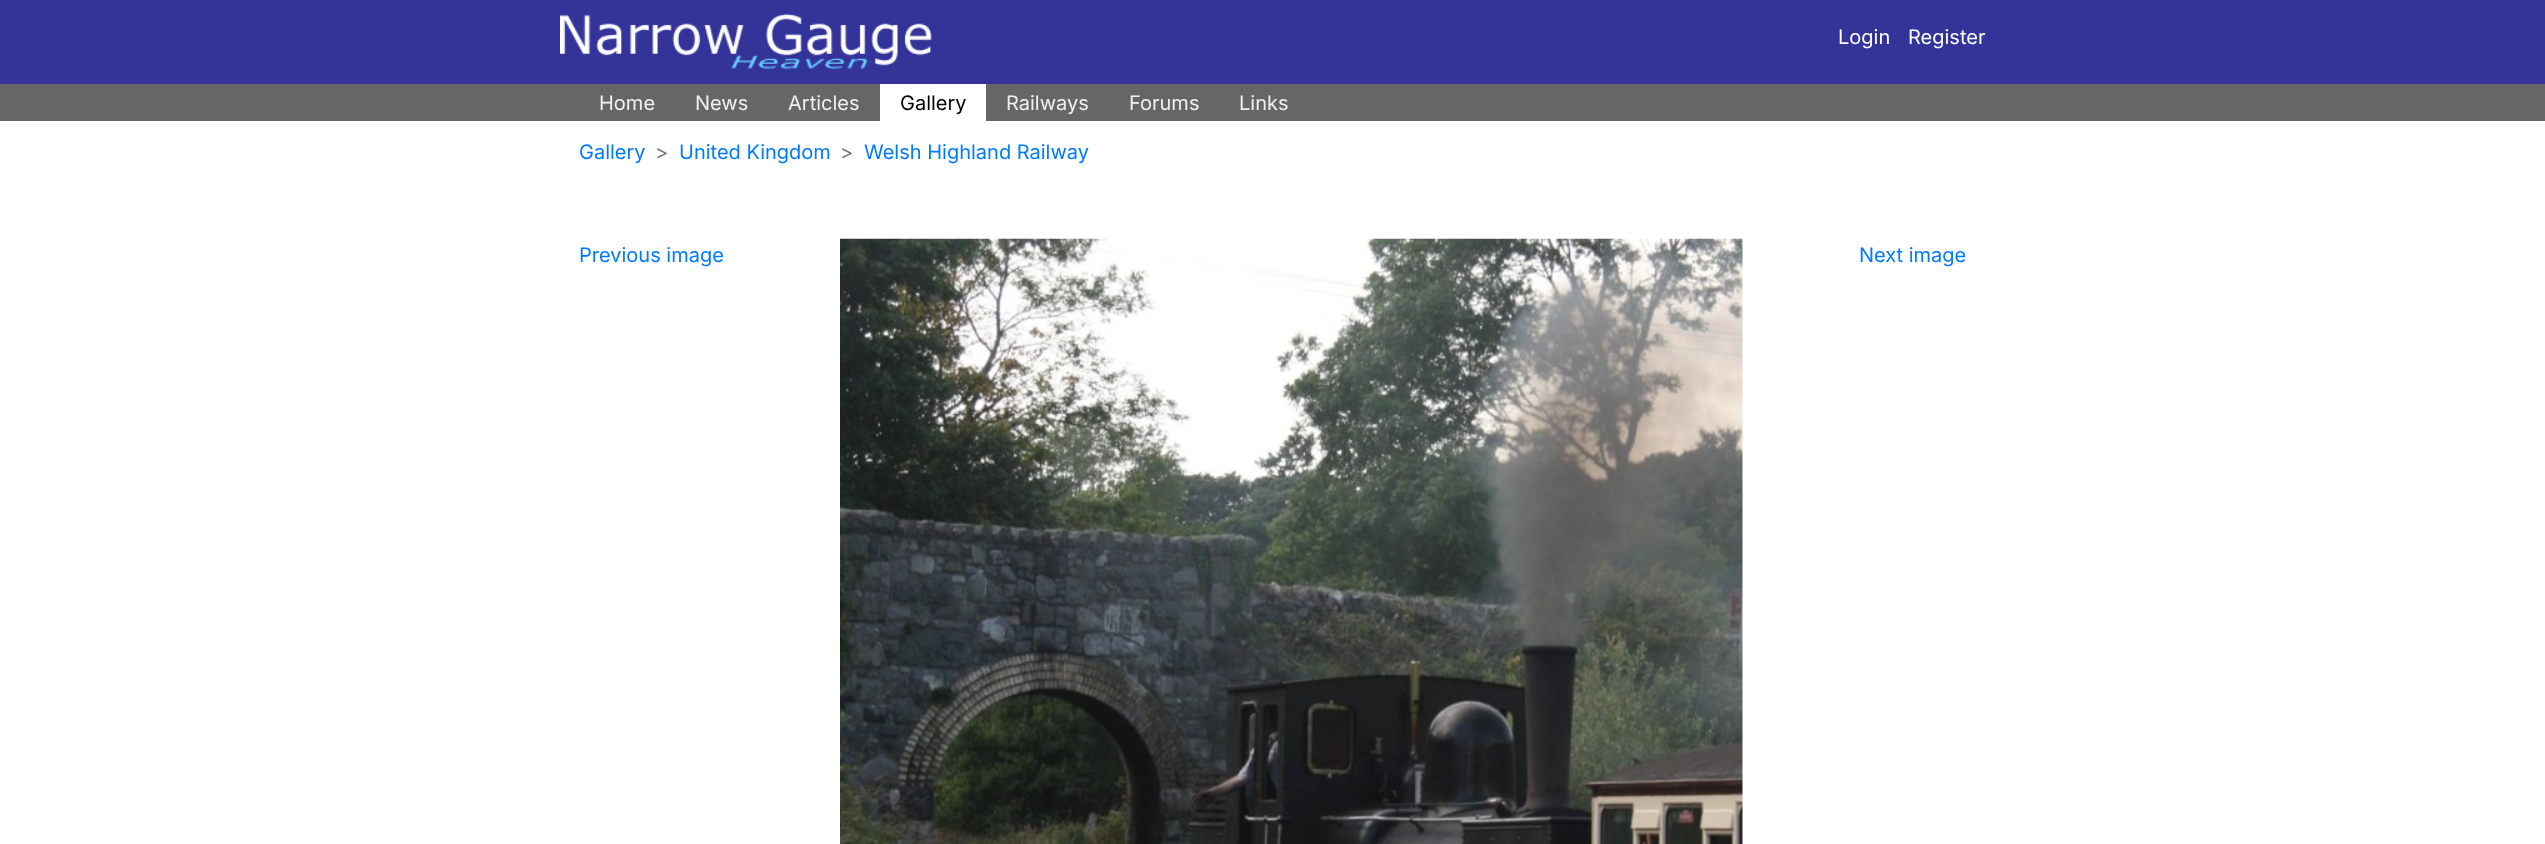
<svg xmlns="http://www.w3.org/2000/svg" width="2545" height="844">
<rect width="100%" height="100%" fill="#fff"/>
<rect width="2545" height="84" fill="#339"/>
<image x="560" y="13" width="372" height="56" href="media/1.png"/>
<text x="1838" y="44" style="font-family:Inter;font-size:20px;fill:#fff">Login</text>
<text x="1908" y="44" style="font-family:Inter;font-size:20px;fill:#fff">Register</text>
<rect y="84" width="2545" height="37" fill="#666"/>
<text x="599" y="110" style="font-family:Inter;font-size:20px;fill:#f0f0f0">Home</text>
<text x="695" y="110" style="font-family:Inter;font-size:20px;fill:#f0f0f0">News</text>
<text x="788" y="110" style="font-family:Inter;font-size:20px;fill:#f0f0f0">Articles</text>
<rect x="880" y="84" width="106" height="37" fill="#fff"/>
<text x="900" y="110" style="font-family:Inter;font-size:20px;fill:#000">Gallery</text>
<text x="1006" y="110" style="font-family:Inter;font-size:20px;fill:#f0f0f0">Railways</text>
<text x="1129" y="110" style="font-family:Inter;font-size:20px;fill:#f0f0f0">Forums</text>
<text x="1239" y="110" style="font-family:Inter;font-size:20px;fill:#f0f0f0">Links</text>
<text x="579" y="159" style="font-family:Inter;font-size:20px;fill:#007bff">Gallery</text>
<text x="655" y="159" style="font-family:Inter;font-size:20px;fill:#6c757d">&gt;</text>
<text x="679" y="159" style="font-family:Inter;font-size:20px;fill:#007bff">United Kingdom</text>
<text x="840" y="159" style="font-family:Inter;font-size:20px;fill:#6c757d">&gt;</text>
<text x="864" y="159" style="font-family:Inter;font-size:20px;fill:#007bff">Welsh Highland Railway</text>
<text x="579" y="262" style="font-family:Inter;font-size:20px;fill:#007bff">Previous image</text>
<image x="840" y="238" width="903" height="606" href="media/2.png"/>
<text x="1859" y="262" style="font-family:Inter;font-size:20px;fill:#007bff">Next image</text>
</svg>
